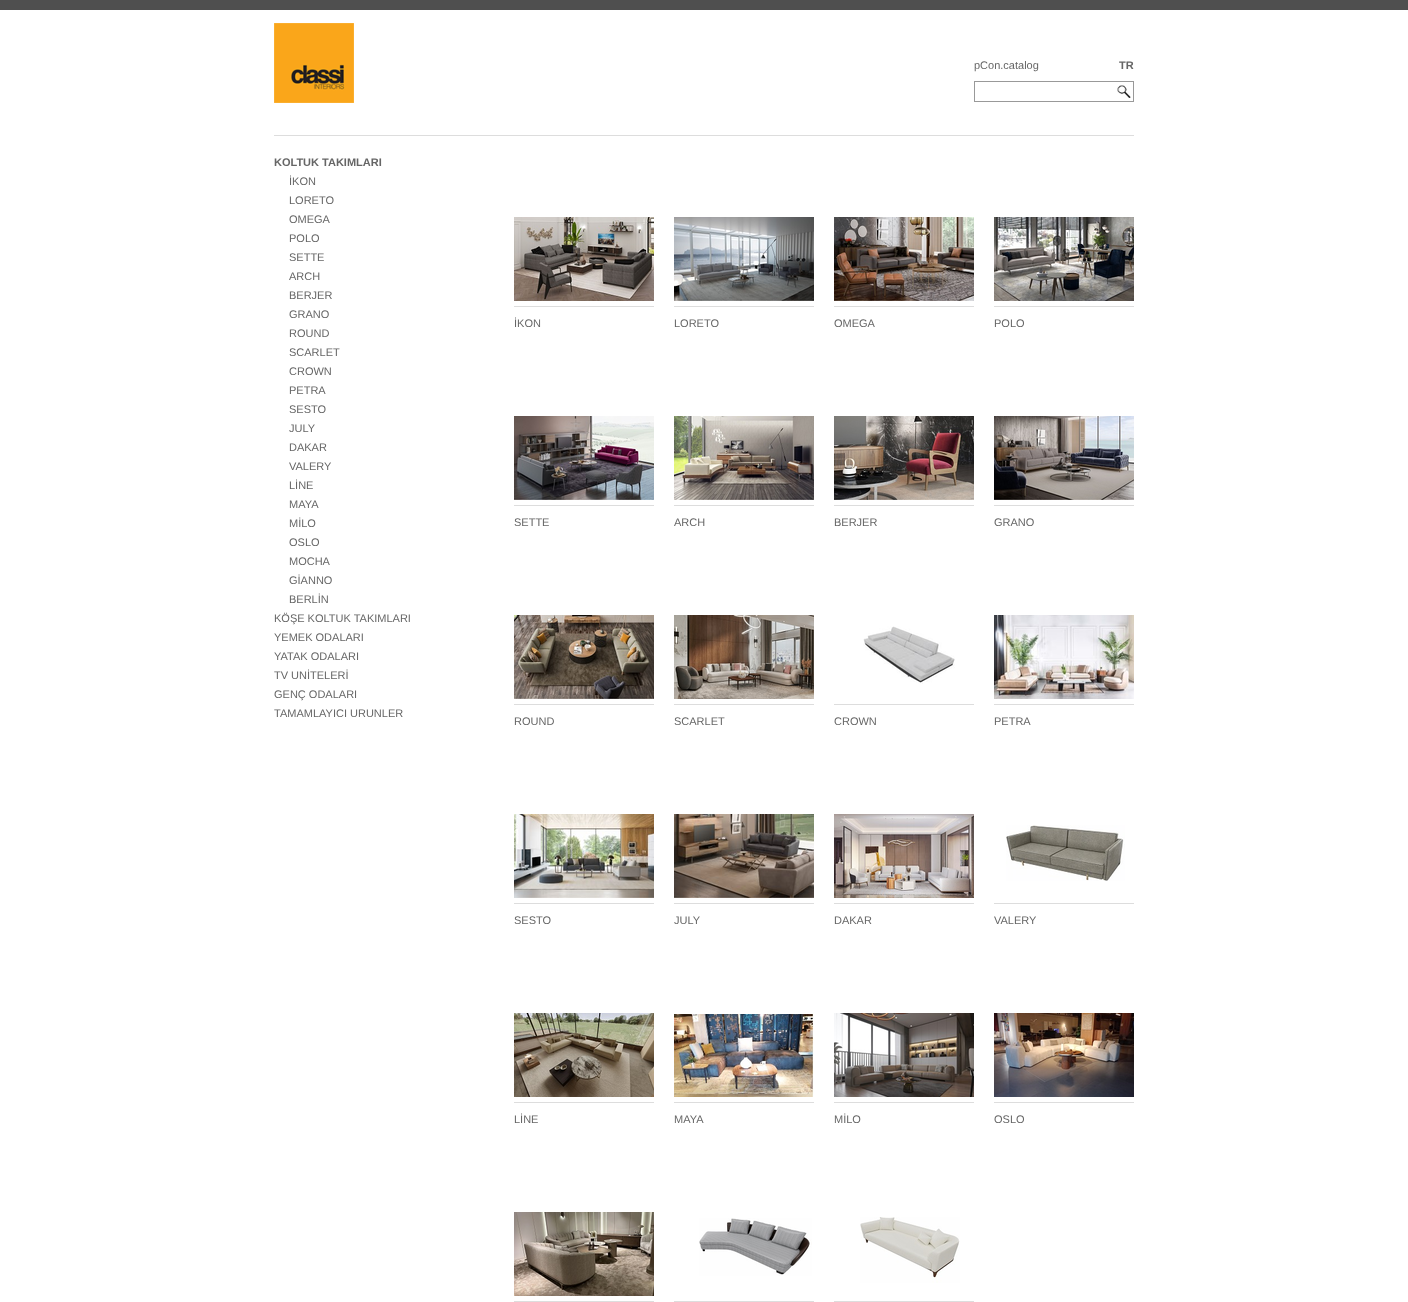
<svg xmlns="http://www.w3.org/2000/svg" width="1408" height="1302">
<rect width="100%" height="100%" fill="#fff"/>
<rect width="1408" height="10" fill="#4f4f4f"/>
<image x="274" y="23" width="80" height="80" href="media/1.png"/>
<text x="974" y="69" style="font-family:Liberation Sans;font-size:11px;fill:#666">pCon.catalog</text>
<text x="1119" y="69" style="font-family:Liberation Sans;font-size:11px;font-weight:bold;fill:#666">TR</text>
<rect x="974.5" y="81.5" width="159" height="20" fill="none" stroke="#999"/>
<image x="1117" y="85" width="14" height="13" href="media/2.png"/>
<rect x="274" y="135" width="860" height="1" fill="#ddd"/>
<text x="274" y="166" style="font-family:Liberation Sans;font-size:11px;font-weight:bold;fill:#666">KOLTUK TAKIMLARI</text>
<text x="289" y="185" style="font-family:Liberation Sans;font-size:11px;fill:#666">İKON</text>
<text x="289" y="204" style="font-family:Liberation Sans;font-size:11px;fill:#666">LORETO</text>
<text x="289" y="223" style="font-family:Liberation Sans;font-size:11px;fill:#666">OMEGA</text>
<text x="289" y="242" style="font-family:Liberation Sans;font-size:11px;fill:#666">POLO</text>
<text x="289" y="261" style="font-family:Liberation Sans;font-size:11px;fill:#666">SETTE</text>
<text x="289" y="280" style="font-family:Liberation Sans;font-size:11px;fill:#666">ARCH</text>
<text x="289" y="299" style="font-family:Liberation Sans;font-size:11px;fill:#666">BERJER</text>
<text x="289" y="318" style="font-family:Liberation Sans;font-size:11px;fill:#666">GRANO</text>
<text x="289" y="337" style="font-family:Liberation Sans;font-size:11px;fill:#666">ROUND</text>
<text x="289" y="356" style="font-family:Liberation Sans;font-size:11px;fill:#666">SCARLET</text>
<text x="289" y="375" style="font-family:Liberation Sans;font-size:11px;fill:#666">CROWN</text>
<text x="289" y="394" style="font-family:Liberation Sans;font-size:11px;fill:#666">PETRA</text>
<text x="289" y="413" style="font-family:Liberation Sans;font-size:11px;fill:#666">SESTO</text>
<text x="289" y="432" style="font-family:Liberation Sans;font-size:11px;fill:#666">JULY</text>
<text x="289" y="451" style="font-family:Liberation Sans;font-size:11px;fill:#666">DAKAR</text>
<text x="289" y="470" style="font-family:Liberation Sans;font-size:11px;fill:#666">VALERY</text>
<text x="289" y="489" style="font-family:Liberation Sans;font-size:11px;fill:#666">LİNE</text>
<text x="289" y="508" style="font-family:Liberation Sans;font-size:11px;fill:#666">MAYA</text>
<text x="289" y="527" style="font-family:Liberation Sans;font-size:11px;fill:#666">MİLO</text>
<text x="289" y="546" style="font-family:Liberation Sans;font-size:11px;fill:#666">OSLO</text>
<text x="289" y="565" style="font-family:Liberation Sans;font-size:11px;fill:#666">MOCHA</text>
<text x="289" y="584" style="font-family:Liberation Sans;font-size:11px;fill:#666">GİANNO</text>
<text x="289" y="603" style="font-family:Liberation Sans;font-size:11px;fill:#666">BERLİN</text>
<text x="274" y="622" style="font-family:Liberation Sans;font-size:11px;fill:#666">KÖŞE KOLTUK TAKIMLARI</text>
<text x="274" y="641" style="font-family:Liberation Sans;font-size:11px;fill:#666">YEMEK ODALARI</text>
<text x="274" y="660" style="font-family:Liberation Sans;font-size:11px;fill:#666">YATAK ODALARI</text>
<text x="274" y="679" style="font-family:Liberation Sans;font-size:11px;fill:#666">TV UNİTELERİ</text>
<text x="274" y="698" style="font-family:Liberation Sans;font-size:11px;fill:#666">GENÇ ODALARI</text>
<text x="274" y="717" style="font-family:Liberation Sans;font-size:11px;fill:#666">TAMAMLAYICI URUNLER</text>
<image x="514" y="217" width="140" height="84" href="media/3.png"/>
<rect x="514" y="306" width="140" height="1" fill="#ddd"/>
<text x="514" y="327" style="font-family:Liberation Sans;font-size:11px;fill:#666">İKON</text>
<image x="674" y="217" width="140" height="84" href="media/4.png"/>
<rect x="674" y="306" width="140" height="1" fill="#ddd"/>
<text x="674" y="327" style="font-family:Liberation Sans;font-size:11px;fill:#666">LORETO</text>
<image x="834" y="217" width="140" height="84" href="media/5.png"/>
<rect x="834" y="306" width="140" height="1" fill="#ddd"/>
<text x="834" y="327" style="font-family:Liberation Sans;font-size:11px;fill:#666">OMEGA</text>
<image x="994" y="217" width="140" height="84" href="media/6.png"/>
<rect x="994" y="306" width="140" height="1" fill="#ddd"/>
<text x="994" y="327" style="font-family:Liberation Sans;font-size:11px;fill:#666">POLO</text>
<image x="514" y="416" width="140" height="84" href="media/7.png"/>
<rect x="514" y="505" width="140" height="1" fill="#ddd"/>
<text x="514" y="526" style="font-family:Liberation Sans;font-size:11px;fill:#666">SETTE</text>
<image x="674" y="416" width="140" height="84" href="media/8.png"/>
<rect x="674" y="505" width="140" height="1" fill="#ddd"/>
<text x="674" y="526" style="font-family:Liberation Sans;font-size:11px;fill:#666">ARCH</text>
<image x="834" y="416" width="140" height="84" href="media/9.png"/>
<rect x="834" y="505" width="140" height="1" fill="#ddd"/>
<text x="834" y="526" style="font-family:Liberation Sans;font-size:11px;fill:#666">BERJER</text>
<image x="994" y="416" width="140" height="84" href="media/10.png"/>
<rect x="994" y="505" width="140" height="1" fill="#ddd"/>
<text x="994" y="526" style="font-family:Liberation Sans;font-size:11px;fill:#666">GRANO</text>
<image x="514" y="615" width="140" height="84" href="media/11.png"/>
<rect x="514" y="704" width="140" height="1" fill="#ddd"/>
<text x="514" y="725" style="font-family:Liberation Sans;font-size:11px;fill:#666">ROUND</text>
<image x="674" y="615" width="140" height="84" href="media/12.png"/>
<rect x="674" y="704" width="140" height="1" fill="#ddd"/>
<text x="674" y="725" style="font-family:Liberation Sans;font-size:11px;fill:#666">SCARLET</text>
<image x="863" y="626" width="92" height="58" href="media/13.png"/>
<rect x="834" y="704" width="140" height="1" fill="#ddd"/>
<text x="834" y="725" style="font-family:Liberation Sans;font-size:11px;fill:#666">CROWN</text>
<image x="994" y="615" width="140" height="84" href="media/14.png"/>
<rect x="994" y="704" width="140" height="1" fill="#ddd"/>
<text x="994" y="725" style="font-family:Liberation Sans;font-size:11px;fill:#666">PETRA</text>
<image x="514" y="814" width="140" height="84" href="media/15.png"/>
<rect x="514" y="903" width="140" height="1" fill="#ddd"/>
<text x="514" y="924" style="font-family:Liberation Sans;font-size:11px;fill:#666">SESTO</text>
<image x="674" y="814" width="140" height="84" href="media/16.png"/>
<rect x="674" y="903" width="140" height="1" fill="#ddd"/>
<text x="674" y="924" style="font-family:Liberation Sans;font-size:11px;fill:#666">JULY</text>
<image x="834" y="814" width="140" height="84" href="media/17.png"/>
<rect x="834" y="903" width="140" height="1" fill="#ddd"/>
<text x="834" y="924" style="font-family:Liberation Sans;font-size:11px;fill:#666">DAKAR</text>
<image x="1006" y="825" width="119" height="56" href="media/18.png"/>
<rect x="994" y="903" width="140" height="1" fill="#ddd"/>
<text x="994" y="924" style="font-family:Liberation Sans;font-size:11px;fill:#666">VALERY</text>
<image x="514" y="1013" width="140" height="84" href="media/19.png"/>
<rect x="514" y="1102" width="140" height="1" fill="#ddd"/>
<text x="514" y="1123" style="font-family:Liberation Sans;font-size:11px;fill:#666">LİNE</text>
<image x="674" y="1014" width="140" height="83" href="media/20.png"/>
<rect x="674" y="1102" width="140" height="1" fill="#ddd"/>
<text x="674" y="1123" style="font-family:Liberation Sans;font-size:11px;fill:#666">MAYA</text>
<image x="834" y="1013" width="140" height="84" href="media/21.png"/>
<rect x="834" y="1102" width="140" height="1" fill="#ddd"/>
<text x="834" y="1123" style="font-family:Liberation Sans;font-size:11px;fill:#666">MİLO</text>
<image x="994" y="1013" width="140" height="84" href="media/22.png"/>
<rect x="994" y="1102" width="140" height="1" fill="#ddd"/>
<text x="994" y="1123" style="font-family:Liberation Sans;font-size:11px;fill:#666">OSLO</text>
<image x="514" y="1212" width="140" height="84" href="media/23.png"/>
<rect x="514" y="1301" width="140" height="1" fill="#ddd"/>
<image x="699" y="1218" width="113" height="58" href="media/24.png"/>
<rect x="674" y="1301" width="140" height="1" fill="#ddd"/>
<image x="860" y="1217" width="100" height="66" href="media/25.png"/>
<rect x="834" y="1301" width="140" height="1" fill="#ddd"/>
</svg>
